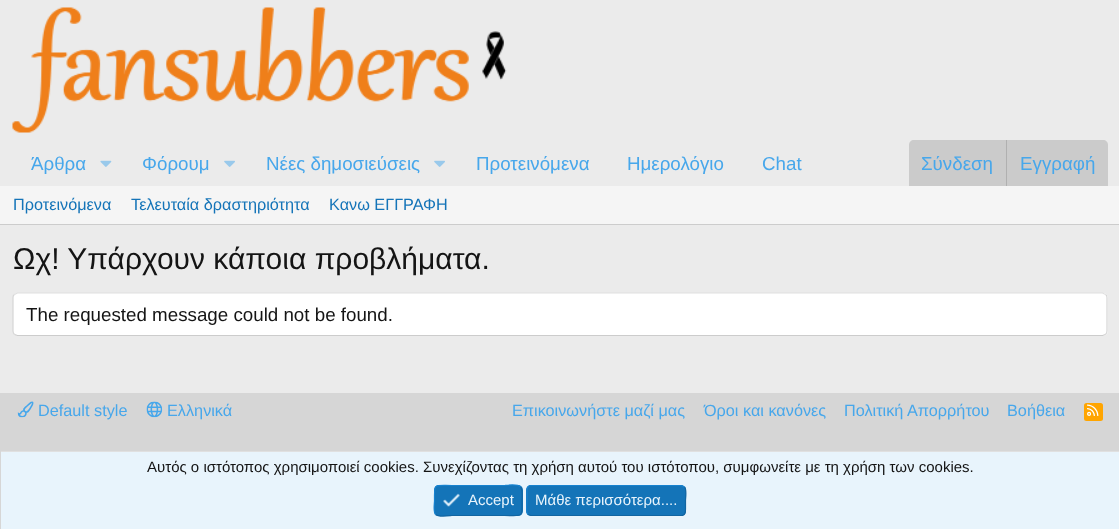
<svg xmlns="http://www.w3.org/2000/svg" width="1119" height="529">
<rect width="100%" height="100%" fill="#ebebeb"/>
<image x="12" y="7" width="495" height="126" href="media/1.png"/>
<text x="31" y="170" style="font-family:Liberation Sans;font-size:18.75px;fill:#47a7eb">Άρθρα</text>
<image x="100" y="160" width="12" height="7" href="media/2.png"/>
<text x="142" y="170" style="font-family:Liberation Sans;font-size:18.75px;fill:#47a7eb">Φόρουμ</text>
<image x="224" y="160" width="11" height="7" href="media/3.png"/>
<text x="266" y="170" style="font-family:Liberation Sans;font-size:18.75px;fill:#47a7eb">Νέες δημοσιεύσεις</text>
<image x="434" y="160" width="11" height="7" href="media/3.png"/>
<text x="476" y="170" style="font-family:Liberation Sans;font-size:18.75px;fill:#47a7eb">Προτεινόμενα</text>
<text x="627" y="170" style="font-family:Liberation Sans;font-size:18.75px;fill:#47a7eb">Ημερολόγιο</text>
<text x="762" y="170" style="font-family:Liberation Sans;font-size:18.75px;fill:#47a7eb">Chat</text>
<path d="M914 140h189c3 0 5 2 5 5v41h-199v-41c0-3 2-5 5-5z" fill="#cbcbcb"/>
<text x="921" y="170" style="font-family:Liberation Sans;font-size:18.75px;fill:#47a7eb">Σύνδεση</text>
<rect x="1006" y="140" width="1" height="46" fill="#b0b0b0"/>
<text x="1020" y="170" style="font-family:Liberation Sans;font-size:18.75px;fill:#47a7eb">Εγγραφή</text>
<rect y="186" width="1119" height="38" fill="#f5f5f5"/>
<rect y="224" width="1119" height="1" fill="#ccc"/>
<text x="13" y="210" style="font-family:Liberation Sans;font-size:16.25px;fill:#1474b8">Προτεινόμενα</text>
<text x="131" y="210" style="font-family:Liberation Sans;font-size:16.25px;fill:#1474b8">Τελευταία δραστηριότητα</text>
<text x="329" y="210" style="font-family:Liberation Sans;font-size:16.25px;fill:#1474b8">Κανω ΕΓΓΡΑΦΗ</text>
<text x="13" y="269" style="font-family:Liberation Sans;font-size:30px;fill:#141414">Ωχ! Υπάρχουν κάποια προβλήματα.</text>
<rect x="13" y="293" width="1095" height="43" rx="5" fill="#fff"/>
<path d="M14.5 294.5l3-1.5h1085l3 1.5" fill="none" stroke="#e0e0e0" stroke-width="1.2"/>
<path d="M1105.5 294.5c1 .5 1.5 2 1.5 3v33.5c0 1.5-.5 2.5-1.5 3.5" fill="none" stroke="#d6d6d6" stroke-width="1.2"/>
<path d="M1105.5 334.5l-3 1h-1085l-3-1" fill="none" stroke="#ccc" stroke-width="1.2"/>
<path d="M14.5 334.5c-1-1-1.5-2-1.5-3.5v-33.5c0-1 .5-2.5 1.5-3" fill="none" stroke="#d6d6d6" stroke-width="1.2"/>
<text x="26" y="321" style="font-family:Liberation Sans;font-size:18.75px;fill:#141414">The requested message could not be found.</text>
<rect y="393" width="1119" height="58" fill="#d6d6d6"/>
<image x="17" y="401" width="17" height="17" href="media/4.png"/>
<text x="38" y="416" style="font-family:Liberation Sans;font-size:16.25px;fill:#47a7eb">Default style</text>
<image x="146" y="401" width="17" height="17" href="media/5.png"/>
<text x="167" y="416" style="font-family:Liberation Sans;font-size:16.25px;fill:#47a7eb">Ελληνικά</text>
<text x="512" y="416" style="font-family:Liberation Sans;font-size:16.25px;fill:#47a7eb">Επικοινωνήστε μαζί μας</text>
<text x="704" y="416" style="font-family:Liberation Sans;font-size:16.25px;fill:#47a7eb">Όροι και κανόνες</text>
<text x="844" y="416" style="font-family:Liberation Sans;font-size:16.25px;fill:#47a7eb">Πολιτική Απορρήτου</text>
<text x="1007" y="416" style="font-family:Liberation Sans;font-size:16.25px;fill:#47a7eb">Βοήθεια</text>
<rect x="1084" y="403" width="19" height="18" rx="2.5" fill="#ffa500"/>
<image x="1087" y="404" width="12" height="12" href="media/6.png"/>
<rect x="1" y="452" width="1118" height="77" fill="#e8f4fc"/>
<rect y="451" width="1119" height="1" fill="#e0e0e0"/>
<rect y="451" width="1" height="78" fill="#d6d6d6"/>
<text x="147" y="472" style="font-family:Liberation Sans;font-size:15px;fill:#141414">Αυτός ο ιστότοπος χρησιμοποιεί cookies. Συνεχίζοντας τη χρήση αυτού του ιστότοπου, συμφωνείτε με τη χρήση των cookies.</text>
<rect x="434" y="485" width="89" height="31" rx="5" fill="#1474b8"/>
<path d="M520.5 487c2.5 2.5 1.5 10.5 1.5 13.5c0 18 1.5 15-17.5 15h-52.5c-1.5 0-13 2-16.5-1" fill="none" stroke="#1265a1" stroke-width="1.2"/>
<path d="M435.5 514.5c-2.5-3-1-10.5-1-14c0-17.5-1.5-15 17.5-15h52.5c1 0 13-2 16 1.5" fill="none" stroke="#1782cf" stroke-width="1.2"/>
<image x="443" y="493" width="17" height="14" href="media/7.png"/>
<text x="468" y="505" style="font-family:Liberation Sans;font-size:15px;fill:#e8f4fc">Accept</text>
<rect x="526" y="485" width="160" height="31" rx="5" fill="#1474b8"/>
<path d="M684.5 487c2.5 2.5 1 10.5 1 13.5v7c0 3.5 .5 8-4.5 8h-150l-3-1" fill="none" stroke="#1265a1" stroke-width="1.2"/>
<path d="M528 514.5c-2.5-3-1-10.5-1-14v-7c0-3-.5-8 4-8h150l3.5 1.5" fill="none" stroke="#1782cf" stroke-width="1.2"/>
<text x="535" y="505" style="font-family:Liberation Sans;font-size:15px;fill:#e8f4fc">Μάθε περισσότερα....</text>
</svg>
